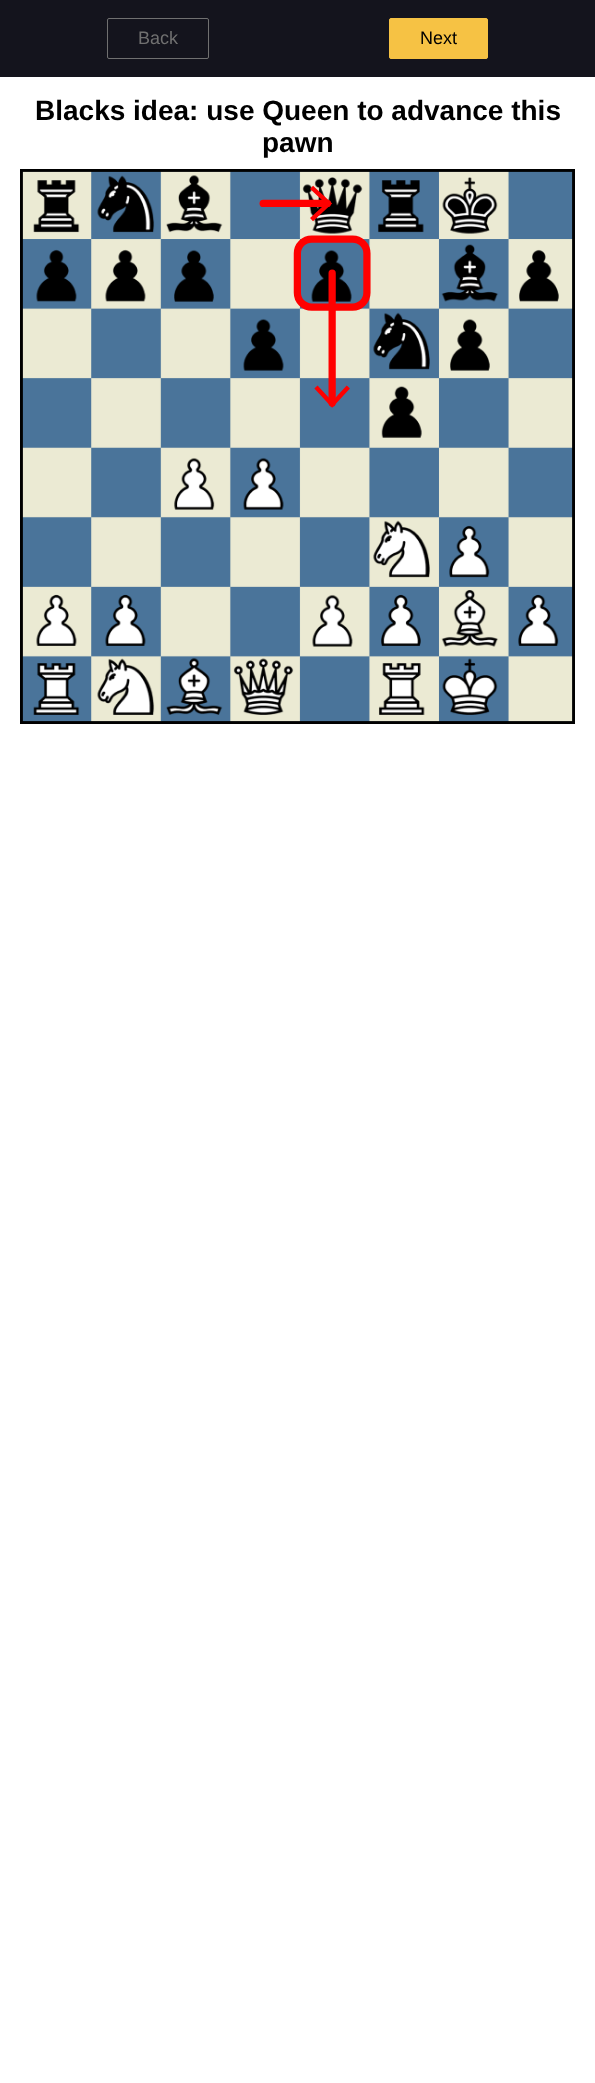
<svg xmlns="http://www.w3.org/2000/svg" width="595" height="2083">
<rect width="100%" height="100%" fill="#fff"/>
<rect width="595" height="77" fill="#14141d"/>
<rect x="107.5" y="18.5" width="101" height="40" rx="1.5" fill="none" stroke="#707070"/>
<text x="138" y="44" style="font-family:Liberation Sans;font-size:18px;fill:#707070">Back</text>
<rect x="389.5" y="18.5" width="98" height="40" rx="1.5" fill="#f6c244" stroke="#f6c244"/>
<text x="420" y="44" style="font-family:Liberation Sans;font-size:18px;fill:#000">Next</text>
<text x="35" y="120" style="font-family:Liberation Sans;font-size:28px;font-weight:bold;fill:#000">Blacks idea: use Queen to advance this</text>
<text x="262" y="152" style="font-family:Liberation Sans;font-size:28px;font-weight:bold;fill:#000">pawn</text>
<image x="20" y="169" width="555" height="555" href="media/1.png"/>
</svg>
